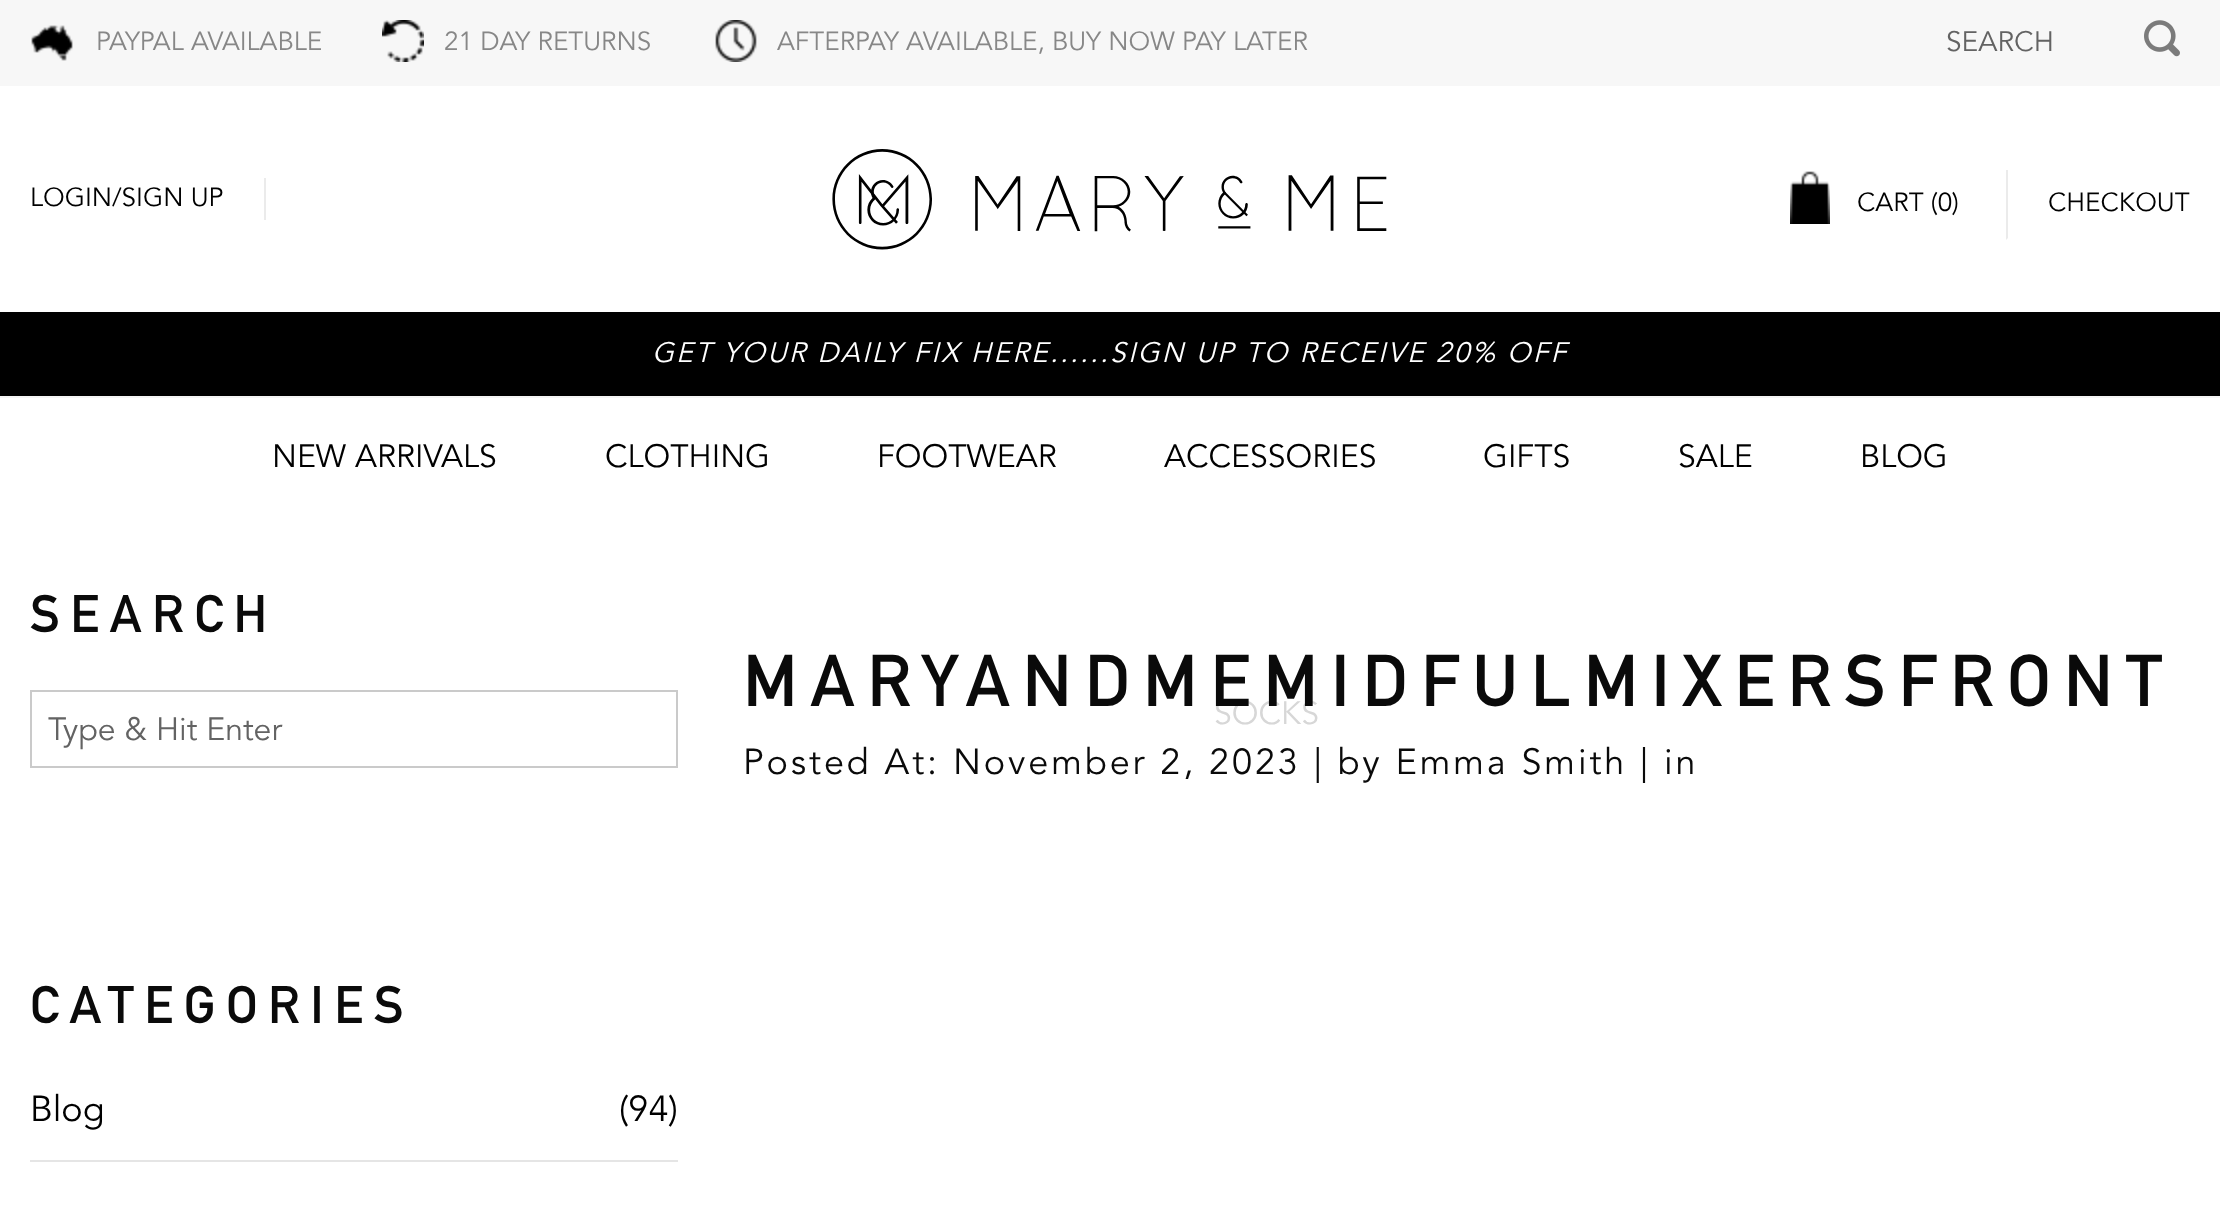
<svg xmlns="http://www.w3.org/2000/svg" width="2220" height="1216">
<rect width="100%" height="100%" fill="#fff"/>
<rect width="2220" height="86" fill="#f7f7f7"/>
<image x="31" y="25" width="42" height="36" href="media/1.png"/>
<text x="96" y="50" style="font-family:Avenir;font-size:26px;fill:#878787">PAYPAL AVAILABLE</text>
<image x="382" y="20" width="42" height="42" href="media/2.png"/>
<text x="444" y="50" style="font-family:Avenir;font-size:26px;fill:#878787">21 DAY RETURNS</text>
<image x="715" y="20" width="42" height="42" href="media/3.png"/>
<text x="777" y="50" style="font-family:Avenir;font-size:26px;fill:#878787">AFTERPAY AVAILABLE, BUY NOW PAY LATER</text>
<text x="1946" y="51" style="font-family:Avenir;font-size:28px;fill:#636363">SEARCH</text>
<image x="2144" y="20" width="36" height="37" href="media/4.png"/>
<rect x="264" y="178" width="2" height="42" fill="#ebebeb"/>
<text x="30" y="206" style="font-family:Avenir;font-size:26px;fill:#000">LOGIN/SIGN UP</text>
<image x="832" y="149" width="555" height="101" href="media/5.png"/>
<image x="1790" y="171" width="40" height="53" href="media/6.png"/>
<text x="1857" y="211" style="font-family:Avenir;font-size:26px;fill:#000">CART (0)</text>
<path d="M2006 240v-70h2v68z" fill="#ebebeb"/>
<text x="2048" y="211" style="font-family:Avenir;font-size:26px;fill:#000">CHECKOUT</text>
<rect y="312" width="2220" height="84" fill="#000"/>
<text x="652" y="362" style="font-family:Avenir;font-size:28px;font-style:italic;letter-spacing:2.25px;fill:#fff">GET YOUR DAILY FIX HERE......SIGN UP TO RECEIVE 20% OFF</text>
<rect y="396" width="2220" height="2" fill="#f5f5f5"/>
<text x="272" y="467" style="font-family:Avenir;font-size:32px;fill:#000">NEW ARRIVALS</text>
<text x="605" y="467" style="font-family:Avenir;font-size:32px;fill:#000">CLOTHING</text>
<text x="877" y="467" style="font-family:Avenir;font-size:32px;fill:#000">FOOTWEAR</text>
<text x="1164" y="467" style="font-family:Avenir;font-size:32px;fill:#000">ACCESSORIES</text>
<text x="1214" y="724" style="font-family:Avenir;font-size:32px;fill:#d7d7d7">SOCKS</text>
<text x="1483" y="467" style="font-family:Avenir;font-size:32px;fill:#000">GIFTS</text>
<text x="1678" y="467" style="font-family:Avenir;font-size:32px;fill:#000">SALE</text>
<text x="1860" y="467" style="font-family:Avenir;font-size:32px;fill:#000">BLOG</text>
<text x="30" y="632" style="font-family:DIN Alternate;font-size:52px;font-weight:bold;letter-spacing:10.5px;fill:#0a0a0a">SEARCH</text>
<rect x="31" y="691" width="646" height="76" fill="none" stroke="#cacaca" stroke-width="2"/>
<text x="48" y="740" style="font-family:Avenir;font-size:32px;fill:#636363">Type &amp; Hit Enter</text>
<text x="30" y="1023" style="font-family:DIN Alternate;font-size:52px;font-weight:bold;letter-spacing:10.5px;fill:#0a0a0a">CATEGORIES</text>
<rect x="30" y="1160" width="648" height="2" fill="#e5e5e5"/>
<text x="30" y="1121" style="font-family:Avenir;font-size:36px;fill:#000">Blog</text>
<text x="619" y="1121" style="font-family:Avenir;font-size:36px;fill:#000">(94)</text>
<text x="743" y="706" style="font-family:DIN Alternate;font-size:72px;font-weight:bold;letter-spacing:12.95px;fill:#0a0a0a">MARYANDMEMIDFULMIXERSFRONT</text>
<text x="743" y="774" style="font-family:Avenir;font-size:36px;letter-spacing:2.9px;fill:#0a0a0a">Posted At: November 2, 2023 | by Emma Smith | in</text>
</svg>
